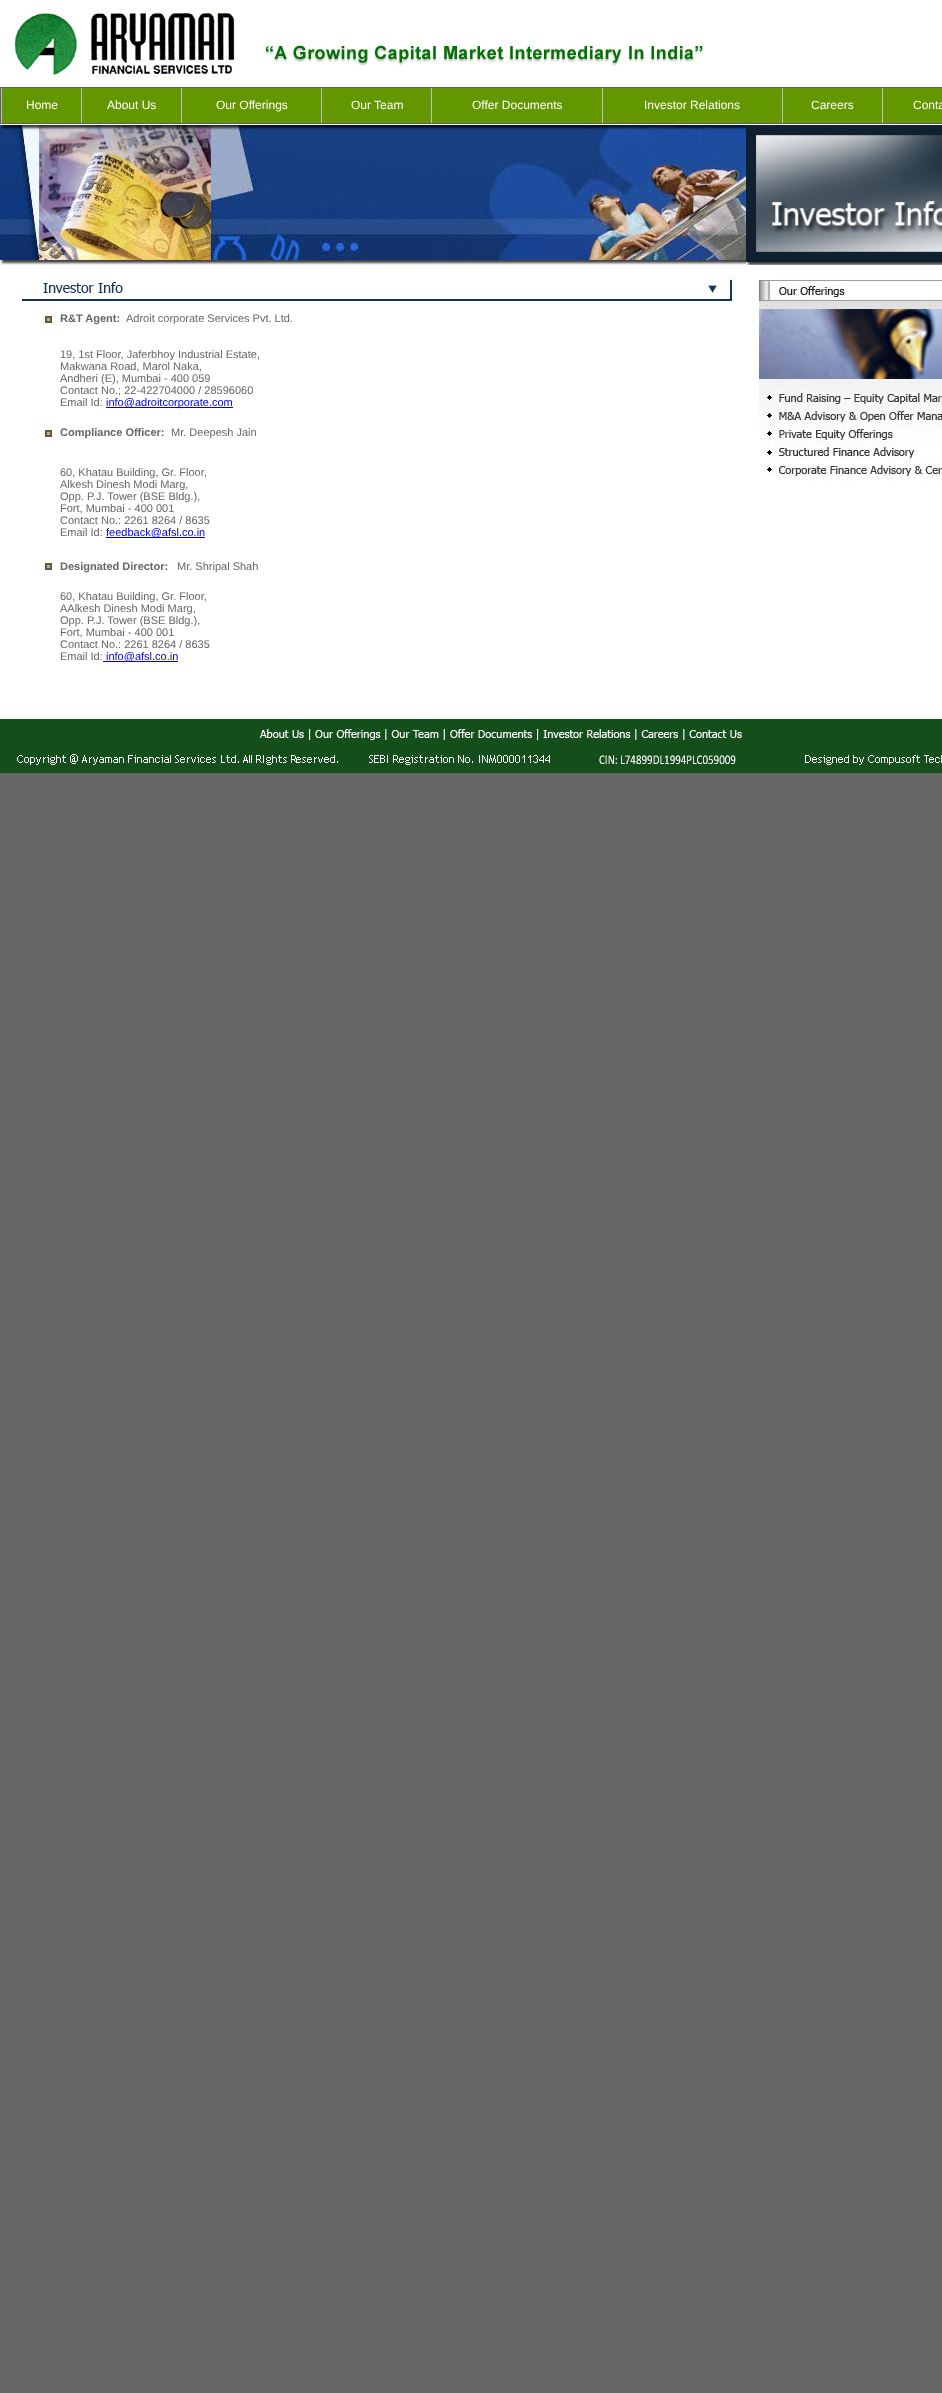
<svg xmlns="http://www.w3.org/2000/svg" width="942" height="2393">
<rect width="100%" height="100%" fill="#666"/>
<rect width="942" height="719" fill="#fff"/>
<image x="0" y="8" width="942" height="73" href="media/1.png"/>
<rect x="0.5" y="87.5" width="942" height="36" fill="none" stroke="#5f5f5f"/>
<rect x="2" y="88" width="79" height="35" fill="#639700"/>
<rect x="1" y="88" width="1" height="35" fill="#c0c0c0"/>
<text x="26" y="109" style="font-family:Liberation Sans;font-size:12px;fill:#fff">Home</text>
<rect x="82" y="88" width="99" height="35" fill="#639700"/>
<rect x="81" y="88" width="1" height="35" fill="#c0c0c0"/>
<text x="107" y="109" style="font-family:Liberation Sans;font-size:12px;fill:#fff">About Us</text>
<rect x="182" y="88" width="139" height="35" fill="#639700"/>
<rect x="181" y="88" width="1" height="35" fill="#c0c0c0"/>
<text x="216" y="109" style="font-family:Liberation Sans;font-size:12px;fill:#fff">Our Offerings</text>
<rect x="322" y="88" width="109" height="35" fill="#639700"/>
<rect x="321" y="88" width="1" height="35" fill="#c0c0c0"/>
<text x="351" y="109" style="font-family:Liberation Sans;font-size:12px;fill:#fff">Our Team</text>
<rect x="432" y="88" width="170" height="35" fill="#639700"/>
<rect x="431" y="88" width="1" height="35" fill="#c0c0c0"/>
<text x="472" y="109" style="font-family:Liberation Sans;font-size:12px;fill:#fff">Offer Documents</text>
<rect x="603" y="88" width="179" height="35" fill="#639700"/>
<rect x="602" y="88" width="1" height="35" fill="#c0c0c0"/>
<text x="644" y="109" style="font-family:Liberation Sans;font-size:12px;fill:#fff">Investor Relations</text>
<rect x="783" y="88" width="99" height="35" fill="#639700"/>
<rect x="782" y="88" width="1" height="35" fill="#c0c0c0"/>
<text x="811" y="109" style="font-family:Liberation Sans;font-size:12px;fill:#fff">Careers</text>
<rect x="883" y="88" width="59" height="35" fill="#639700"/>
<rect x="882" y="88" width="1" height="35" fill="#c0c0c0"/>
<text x="913" y="109" style="font-family:Liberation Sans;font-size:12px;fill:#fff">Conta</text>
<image x="0" y="125" width="746" height="140" href="media/2.png"/>
<image x="746" y="125" width="196" height="140" href="media/3.png"/>
<image x="16" y="273" width="720" height="28" href="media/4.png"/>
<image x="45" y="316" width="7" height="7" href="media/5.png"/>
<text x="60" y="322" style="font-family:Liberation Sans;font-size:11px;font-weight:bold;fill:#666">R&amp;T Agent:</text>
<text x="126" y="322" style="font-family:Liberation Sans;font-size:11px;fill:#666">Adroit corporate Services Pvt. Ltd.</text>
<text x="60" y="358" style="font-family:Liberation Sans;font-size:11px;fill:#666">19, 1st Floor, Jaferbhoy Industrial Estate,</text>
<text x="60" y="370" style="font-family:Liberation Sans;font-size:11px;fill:#666">Makwana Road, Marol Naka,</text>
<text x="60" y="382" style="font-family:Liberation Sans;font-size:11px;fill:#666">Andheri (E), Mumbai - 400 059</text>
<text x="60" y="394" style="font-family:Liberation Sans;font-size:11px;fill:#666">Contact No.; 22-422704000 / 28596060</text>
<text x="60" y="406" style="font-family:Liberation Sans;font-size:11px;fill:#666">Email Id:</text>
<rect x="106" y="407" width="127" height="1" fill="#00e"/>
<text x="106" y="406" style="font-family:Liberation Sans;font-size:11px;fill:#00e">info@adroitcorporate.com</text>
<image x="45" y="430" width="7" height="7" href="media/5.png"/>
<text x="60" y="436" style="font-family:Liberation Sans;font-size:11px;font-weight:bold;fill:#666">Compliance Officer:</text>
<text x="171" y="436" style="font-family:Liberation Sans;font-size:11px;fill:#666">Mr. Deepesh Jain</text>
<text x="60" y="476" style="font-family:Liberation Sans;font-size:11px;fill:#666">60, Khatau Building, Gr. Floor,</text>
<text x="60" y="488" style="font-family:Liberation Sans;font-size:11px;fill:#666">Alkesh Dinesh Modi Marg,</text>
<text x="60" y="500" style="font-family:Liberation Sans;font-size:11px;fill:#666">Opp. P.J. Tower (BSE Bldg.),</text>
<text x="60" y="512" style="font-family:Liberation Sans;font-size:11px;fill:#666">Fort, Mumbai - 400 001</text>
<text x="60" y="524" style="font-family:Liberation Sans;font-size:11px;fill:#666">Contact No.: 2261 8264 / 8635</text>
<text x="60" y="536" style="font-family:Liberation Sans;font-size:11px;fill:#666">Email Id:</text>
<rect x="106" y="537" width="99" height="1" fill="#00e"/>
<text x="106" y="536" style="font-family:Liberation Sans;font-size:11px;fill:#00e">feedback@afsl.co.in</text>
<image x="45" y="563" width="7" height="7" href="media/5.png"/>
<text x="60" y="570" style="font-family:Liberation Sans;font-size:11px;font-weight:bold;fill:#666">Designated Director:</text>
<text x="177" y="570" style="font-family:Liberation Sans;font-size:11px;fill:#666">Mr. Shripal Shah</text>
<text x="60" y="600" style="font-family:Liberation Sans;font-size:11px;fill:#666">60, Khatau Building, Gr. Floor,</text>
<text x="60" y="612" style="font-family:Liberation Sans;font-size:11px;fill:#666">AAlkesh Dinesh Modi Marg,</text>
<text x="60" y="624" style="font-family:Liberation Sans;font-size:11px;fill:#666">Opp. P.J. Tower (BSE Bldg.),</text>
<text x="60" y="636" style="font-family:Liberation Sans;font-size:11px;fill:#666">Fort, Mumbai - 400 001</text>
<text x="60" y="648" style="font-family:Liberation Sans;font-size:11px;fill:#666">Contact No.: 2261 8264 / 8635</text>
<text x="60" y="660" style="font-family:Liberation Sans;font-size:11px;fill:#666">Email Id:</text>
<rect x="103" y="661" width="75" height="1" fill="#00e"/>
<text x="106" y="660" style="font-family:Liberation Sans;font-size:11px;fill:#00e">info@afsl.co.in</text>
<image x="759" y="279" width="183" height="202" href="media/6.png"/>
<image x="0" y="719" width="942" height="54" href="media/7.png"/>
</svg>
